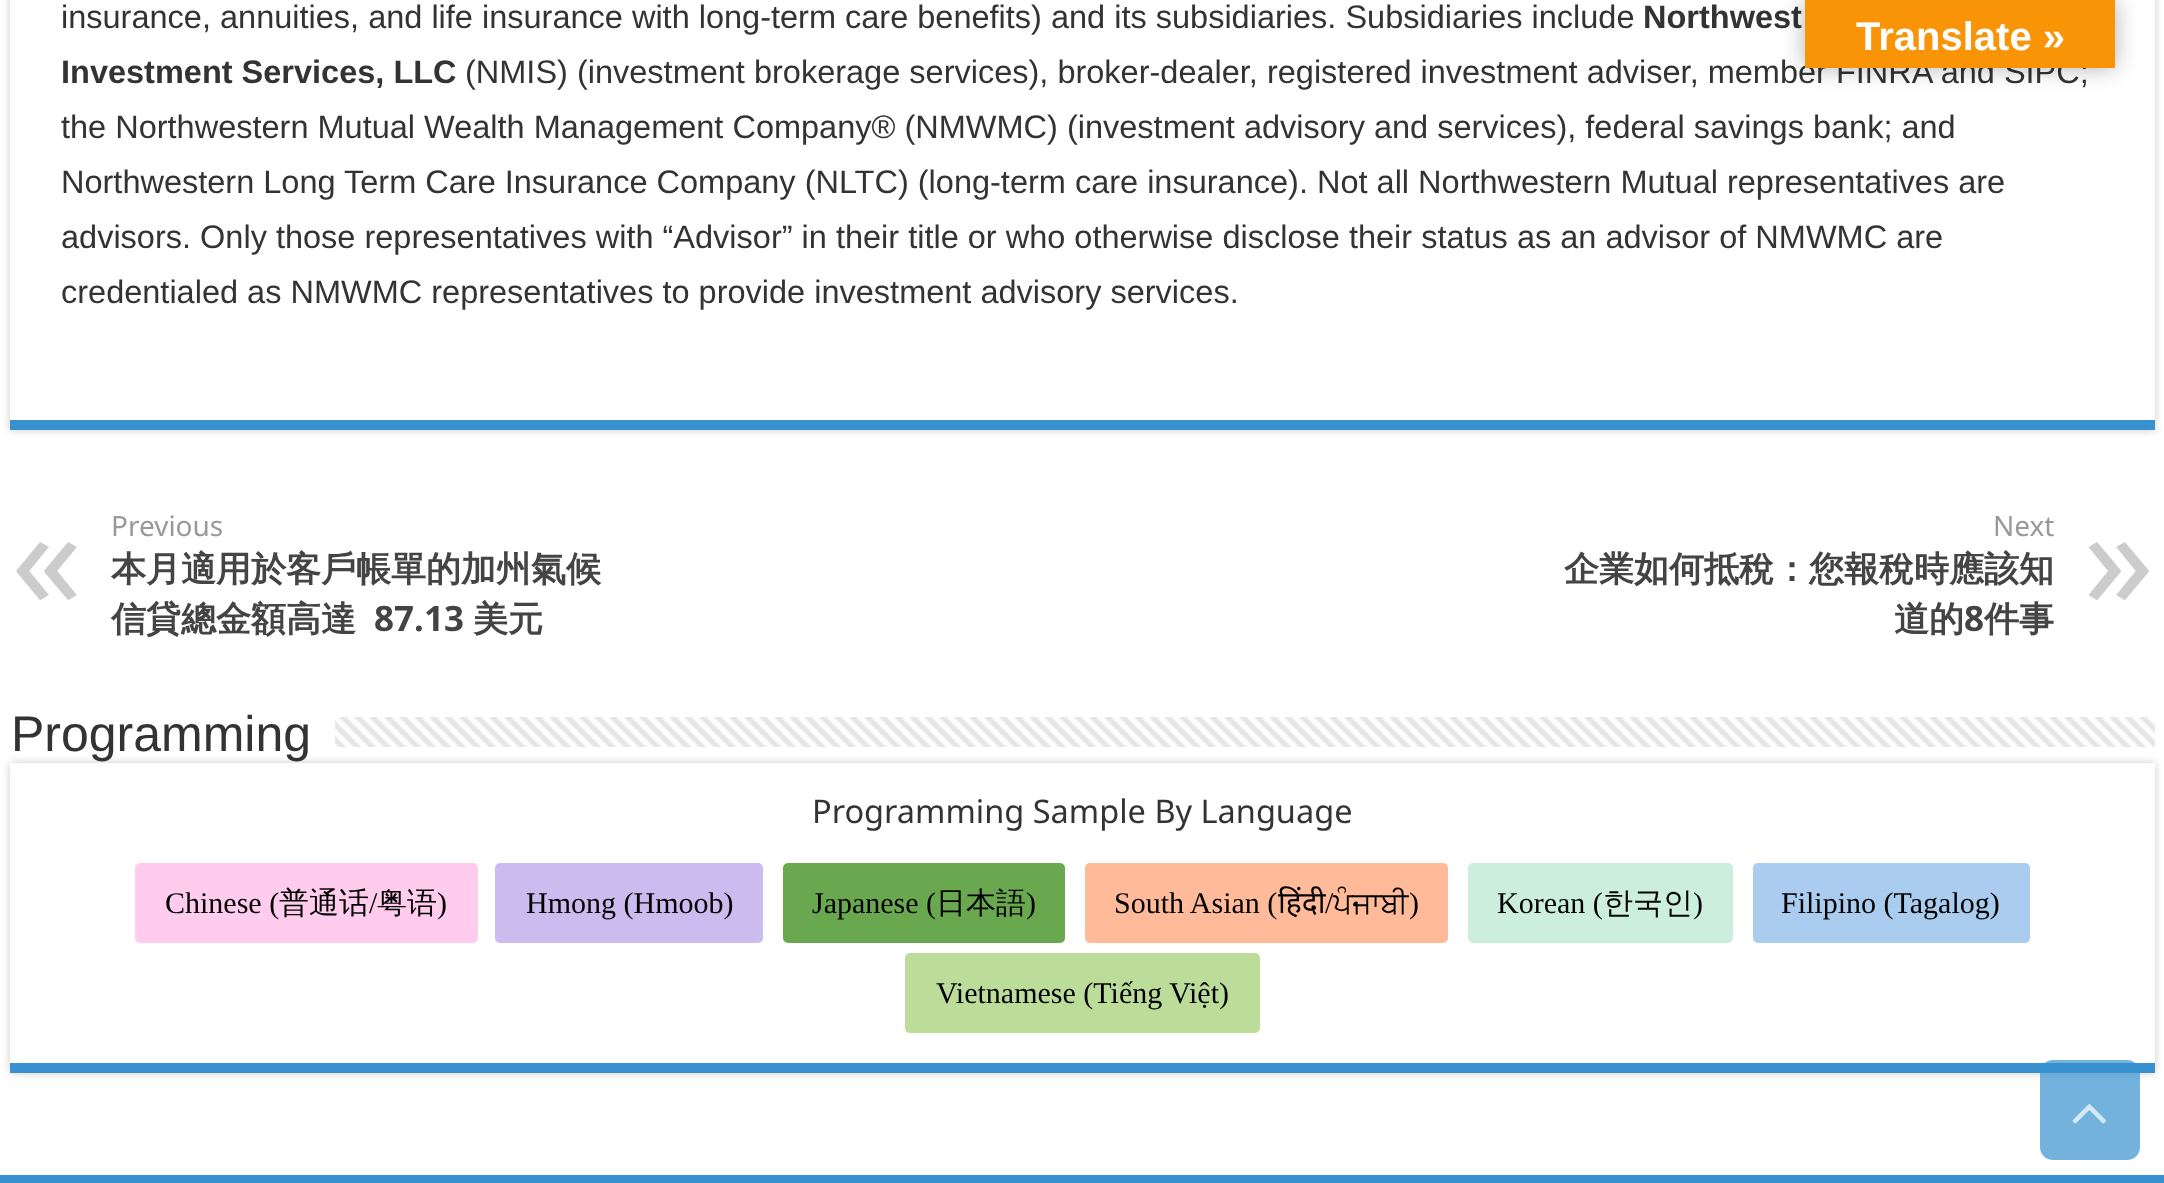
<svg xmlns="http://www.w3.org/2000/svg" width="2164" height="1183">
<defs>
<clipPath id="clip1"><path d="M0 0h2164v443h-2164zm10-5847h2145v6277h-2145z" clip-rule="evenodd"/></clipPath>
</defs>
<rect width="100%" height="100%" fill="#fff"/>
<g clip-path="url(#clip1)">
<rect x="10" y="-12" width="2145" height="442" fill="#cacaca" filter="blur(4px)"/>
</g>
<rect x="10" y="420" width="2145" height="10" fill="#3891cf"/>
<text x="61" y="28" style="font-family:Liberation Sans;font-size:32.5px;fill:#333">insurance, annuities, and life insurance with long-term care benefits) and its subsidiaries. Subsidiaries include</text>
<text x="1643" y="28" style="font-family:Liberation Sans;font-size:32.5px;font-weight:bold;fill:#333">Northwest</text>
<text x="61" y="83" style="font-family:Liberation Sans;font-size:32.5px;font-weight:bold;fill:#333">Investment Services, LLC</text>
<text x="465" y="83" style="font-family:Liberation Sans;font-size:32.5px;fill:#333">(NMIS) (investment brokerage services), broker-dealer, registered investment adviser, member FINRA and SIPC;</text>
<text x="61" y="138" style="font-family:Liberation Sans;font-size:32.5px;fill:#333">the Northwestern Mutual Wealth Management Company® (NMWMC) (investment advisory and services), federal savings bank; and</text>
<text x="61" y="193" style="font-family:Liberation Sans;font-size:32.5px;fill:#333">Northwestern Long Term Care Insurance Company (NLTC) (long-term care insurance). Not all Northwestern Mutual representatives are</text>
<text x="61" y="248" style="font-family:Liberation Sans;font-size:32.5px;fill:#333">advisors. Only those representatives with “Advisor” in their title or who otherwise disclose their status as an advisor of NMWMC are</text>
<text x="61" y="303" style="font-family:Liberation Sans;font-size:32.5px;fill:#333">credentialed as NMWMC representatives to provide investment advisory services.</text>
<text x="111" y="536" style="font-family:Noto Sans;font-size:28px;fill:#999">Previous</text>
<text x="11" y="608" style="font-family:Noto Sans;font-size:140px;fill:#ccc">«</text>
<text x="111" y="581" style="font-family:WenQuanYi Zen Hei;font-size:35px;font-weight:bold;fill:#444">本月適用於客戶帳單的加州氣候</text>
<text x="111" y="631" style="font-family:WenQuanYi Zen Hei;font-size:35px;font-weight:bold;fill:#444">信貸總金額高達</text>
<text x="374" y="631" style="font-family:Noto Sans;font-size:35px;font-weight:bold;fill:#444">87.13</text>
<text x="473" y="631" style="font-family:WenQuanYi Zen Hei;font-size:35px;font-weight:bold;fill:#444">美元</text>
<text x="1993" y="536" style="font-family:Noto Sans;font-size:28px;fill:#999">Next</text>
<text x="1564" y="581" style="font-family:WenQuanYi Zen Hei;font-size:35px;font-weight:bold;fill:#444">企業如何抵稅：您報稅時應該知</text>
<text x="2083" y="608" style="font-family:Noto Sans;font-size:140px;fill:#ccc">»</text>
<text x="1894" y="631" style="font-family:WenQuanYi Zen Hei;font-size:35px;font-weight:bold;fill:#444">道的</text>
<text x="1964" y="631" style="font-family:Noto Sans;font-size:35px;font-weight:bold;fill:#444">8</text>
<text x="1984" y="631" style="font-family:WenQuanYi Zen Hei;font-size:35px;font-weight:bold;fill:#444">件事</text>
<rect x="10" y="763" width="2145" height="310" fill="#cacaca" filter="blur(4px)"/>
<text x="11" y="751" style="font-family:Liberation Sans;font-size:50px;fill:#333">Programming</text>
<image x="335" y="717" width="1820" height="30" href="media/1.png"/>
<rect x="10" y="763" width="2145" height="300" fill="#fff"/>
<rect x="10" y="1063" width="2145" height="10" fill="#3891cf"/>
<text x="812" y="823" style="font-family:Noto Sans;font-size:32.5px;fill:#333">Programming Sample By Language</text>
<rect x="135" y="863" width="343" height="80" rx="5" fill="#fce"/>
<text x="165" y="913" style="font-family:Liberation Serif;font-size:30px;fill:#000">Chinese (</text>
<text x="279" y="913" style="font-family:WenQuanYi Zen Hei;font-size:30px;font-weight:500;fill:#000">普通话</text>
<text x="369" y="913" style="font-family:Liberation Serif;font-size:30px;fill:#000">/</text>
<text x="377" y="913" style="font-family:WenQuanYi Zen Hei;font-size:30px;font-weight:500;fill:#000">粤语</text>
<text x="437" y="913" style="font-family:Liberation Serif;font-size:30px;fill:#000">)</text>
<rect x="495" y="863" width="268" height="80" rx="5" fill="#cbe"/>
<text x="526" y="913" style="font-family:Liberation Serif;font-size:30px;fill:#000">Hmong (Hmoob)</text>
<rect x="783" y="863" width="282" height="80" rx="5" fill="#6aa84f"/>
<text x="812" y="913" style="font-family:Liberation Serif;font-size:30px;fill:#000">Japanese (</text>
<text x="936" y="913" style="font-family:WenQuanYi Zen Hei;font-size:30px;font-weight:500;fill:#000">日本語</text>
<text x="1026" y="913" style="font-family:Liberation Serif;font-size:30px;fill:#000">)</text>
<rect x="1085" y="863" width="363" height="80" rx="5" fill="#fb9"/>
<text x="1114" y="913" style="font-family:Liberation Serif;font-size:30px;fill:#000">South Asian (</text>
<text x="1278" y="913" style="font-family:'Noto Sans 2';font-size:30px;fill:#000">हिंदी</text>
<text x="1325" y="913" style="font-family:Liberation Serif;font-size:30px;fill:#000">/</text>
<text x="1333" y="913" style="font-family:FreeSans;font-size:30px;fill:#000">ਪੰਜਾਬੀ</text>
<text x="1409" y="913" style="font-family:Liberation Serif;font-size:30px;fill:#000">)</text>
<rect x="1468" y="863" width="265" height="80" rx="5" fill="#ced"/>
<text x="1497" y="913" style="font-family:Liberation Serif;font-size:30px;fill:#000">Korean (</text>
<text x="1603" y="913" style="font-family:WenQuanYi Zen Hei;font-size:30px;font-weight:500;fill:#000">한국인</text>
<text x="1693" y="913" style="font-family:Liberation Serif;font-size:30px;fill:#000">)</text>
<rect x="1753" y="863" width="277" height="80" rx="5" fill="#ace"/>
<text x="1781" y="913" style="font-family:Liberation Serif;font-size:30px;fill:#000">Filipino (Tagalog)</text>
<rect x="905" y="953" width="355" height="80" rx="5" fill="#bd9"/>
<text x="936" y="1003" style="font-family:Liberation Serif;font-size:30px;fill:#000">Vietnamese (Tiếng Việt)</text>
<rect x="1805" width="310" height="68" fill="#0000004d" filter="blur(11px)"/>
<rect x="1805" width="310" height="68" fill="#f89406"/>
<text x="1856" y="50" style="font-family:Liberation Sans;font-size:40px;font-weight:bold;fill:#fff">Translate »</text>
<rect x="2040" y="1060" width="100" height="100" rx="13" fill="#3891cfb3"/>
<image x="2072" y="1104" width="34" height="20" href="media/2.png"/>
<rect y="1175" width="2164" height="8" fill="#3891cf"/>
</svg>
